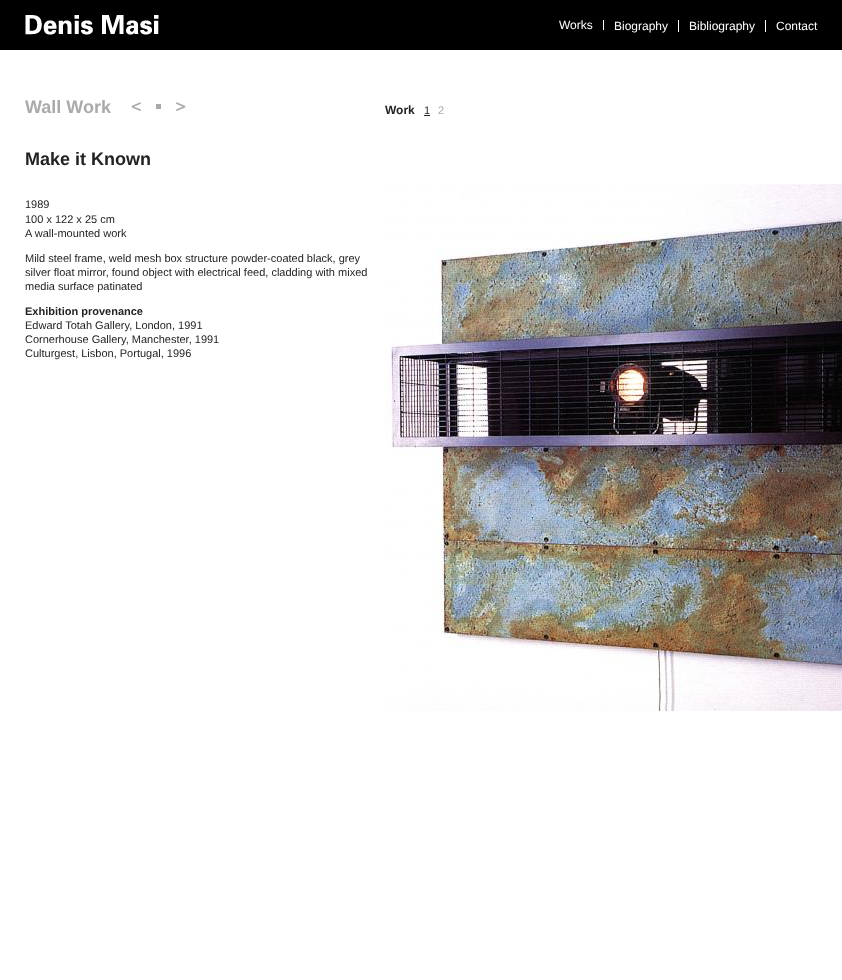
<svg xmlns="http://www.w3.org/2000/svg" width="842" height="980">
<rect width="100%" height="100%" fill="#fff"/>
<rect width="842" height="50" fill="#000"/>
<image x="25" y="15" width="134" height="20" href="media/1.png"/>
<rect x="603" y="20" width="1" height="10" fill="#fff"/>
<text x="559" y="29" style="font-family:Liberation Sans;font-size:12px;fill:#fff">Works</text>
<rect x="678" y="20" width="1" height="12" fill="#fff"/>
<text x="614" y="30" style="font-family:Liberation Sans;font-size:12px;fill:#fff">Biography</text>
<rect x="765" y="20" width="1" height="12" fill="#fff"/>
<text x="689" y="30" style="font-family:Liberation Sans;font-size:12px;fill:#fff">Bibliography</text>
<text x="776" y="30" style="font-family:Liberation Sans;font-size:12px;fill:#fff">Contact</text>
<text x="25" y="113" style="font-family:Liberation Sans;font-size:18px;font-weight:bold;fill:#aaa">Wall Work</text>
<image x="131" y="102" width="10" height="9" href="media/2.png"/>
<rect x="156" y="104" width="5" height="5" fill="#aaa"/>
<image x="176" y="102" width="10" height="9" href="media/3.png"/>
<text x="25" y="165" style="font-family:Liberation Sans;font-size:18px;font-weight:bold;fill:#232323">Make it Known</text>
<text x="25" y="208" style="font-family:Liberation Sans;font-size:11px;fill:#232323">1989</text>
<text x="25" y="223" style="font-family:Liberation Sans;font-size:11px;fill:#232323">100 x 122 x 25 cm</text>
<text x="25" y="237" style="font-family:Liberation Sans;font-size:11px;fill:#232323">A wall-mounted work</text>
<text x="25" y="262" style="font-family:Liberation Sans;font-size:11px;fill:#232323">Mild steel frame, weld mesh box structure powder-coated black, grey</text>
<text x="25" y="276" style="font-family:Liberation Sans;font-size:11px;fill:#232323">silver float mirror, found object with electrical feed, cladding with mixed</text>
<text x="25" y="290" style="font-family:Liberation Sans;font-size:11px;fill:#232323">media surface patinated</text>
<text x="25" y="315" style="font-family:Liberation Sans;font-size:11px;font-weight:bold;fill:#232323">Exhibition provenance</text>
<text x="25" y="329" style="font-family:Liberation Sans;font-size:11px;fill:#232323">Edward Totah Gallery, London, 1991</text>
<text x="25" y="343" style="font-family:Liberation Sans;font-size:11px;fill:#232323">Cornerhouse Gallery, Manchester, 1991</text>
<text x="25" y="357" style="font-family:Liberation Sans;font-size:11px;fill:#232323">Culturgest, Lisbon, Portugal, 1996</text>
<text x="385" y="114" style="font-family:Liberation Sans;font-size:12px;font-weight:bold;fill:#232323">Work</text>
<text x="424" y="114" style="font-family:Liberation Sans;font-size:11px;fill:#232323">1</text>
<rect x="424" y="115" width="6" height="1" fill="#232323"/>
<text x="438" y="114" style="font-family:Liberation Sans;font-size:11px;fill:#aaa">2</text>
<image x="385" y="184" width="457" height="527" href="media/4.png"/>
</svg>
